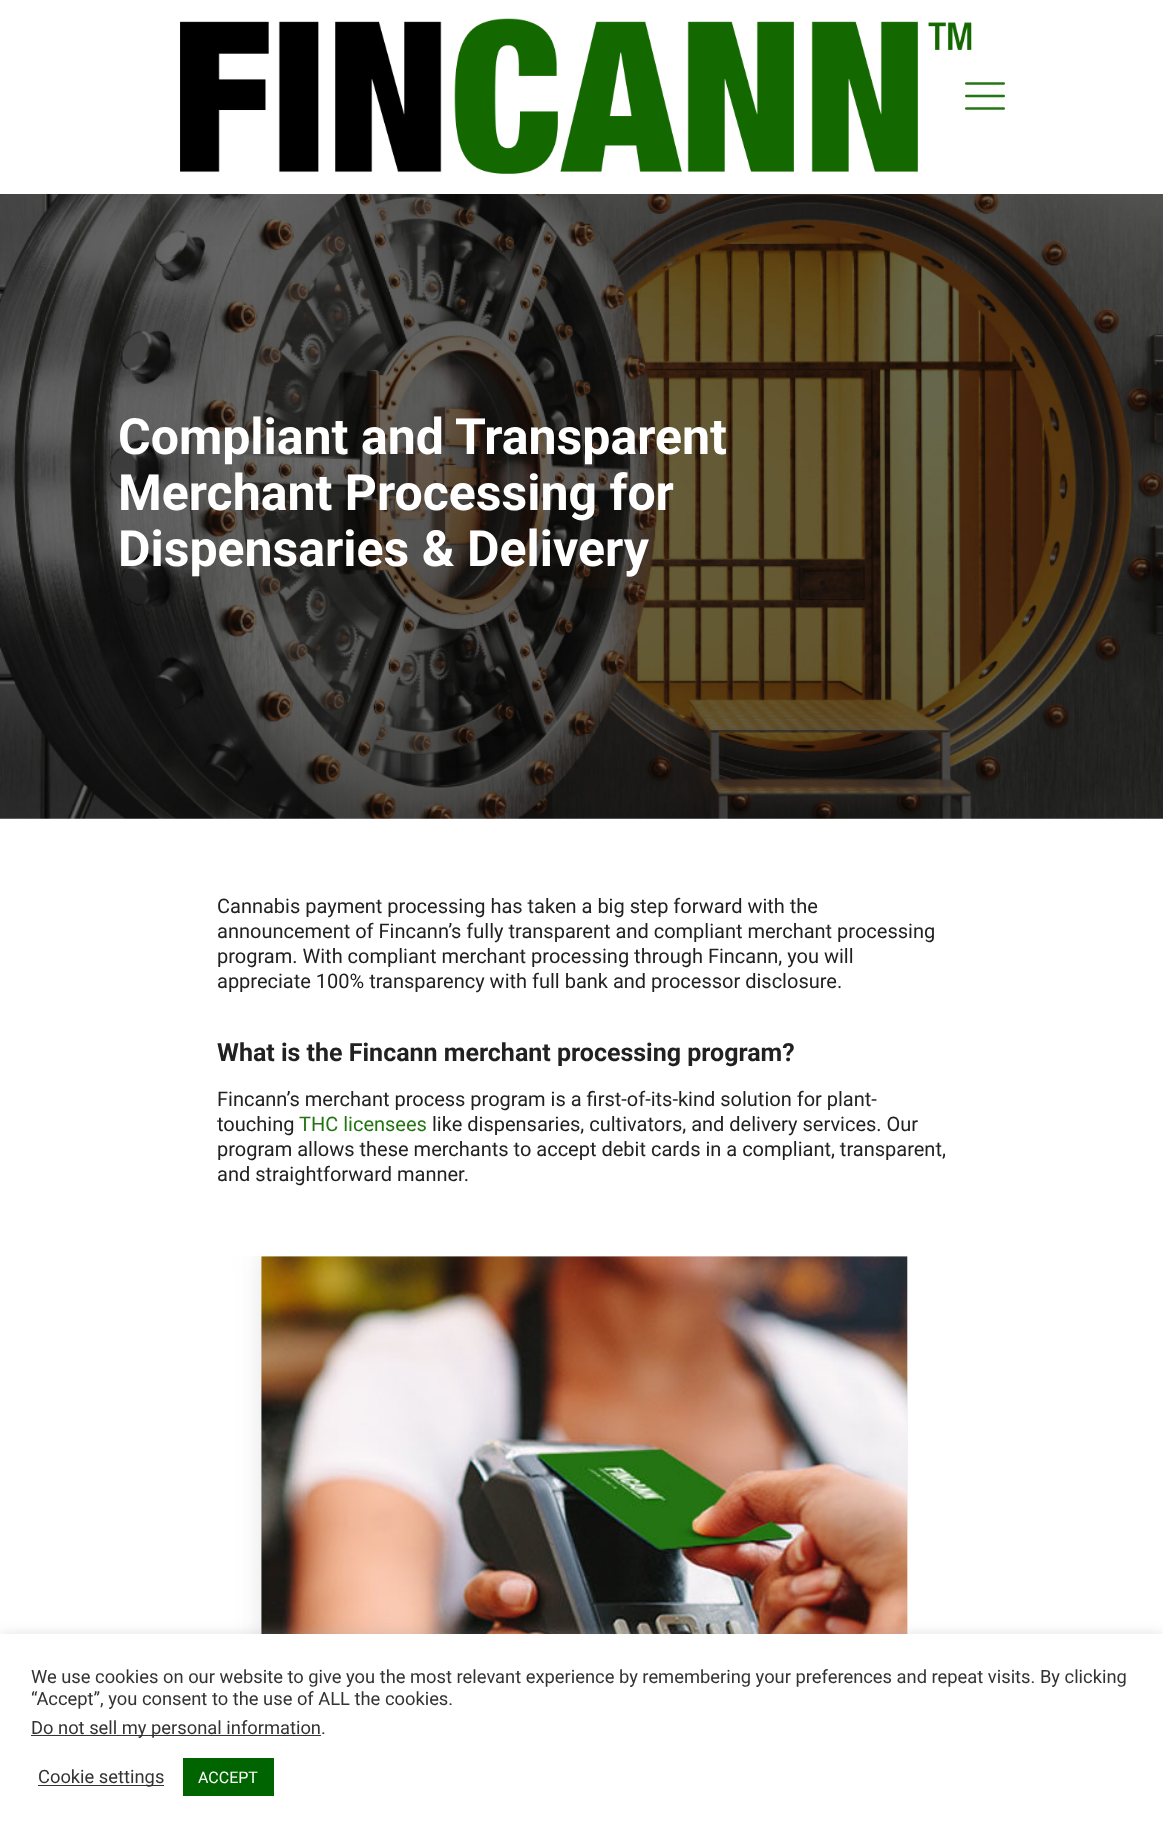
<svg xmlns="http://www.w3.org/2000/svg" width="1163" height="1833">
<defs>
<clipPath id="clip1"><rect x="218" y="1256" width="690" height="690"/></clipPath>
</defs>
<rect width="100%" height="100%" fill="#fff"/>
<image x="180" y="18" width="792" height="156" href="media/1.png"/>
<image x="965" y="82" width="40" height="28" href="media/2.png"/>
<image x="0" y="194" width="1163" height="625" href="media/3.png"/>
<text x="118" y="454" style="font-family:Roboto;font-size:50px;font-weight:bold;fill:#fff">Compliant and Transparent</text>
<text x="118" y="510" style="font-family:Roboto;font-size:50px;font-weight:bold;fill:#fff">Merchant Processing for</text>
<text x="118" y="566" style="font-family:Roboto;font-size:50px;font-weight:bold;fill:#fff">Dispensaries &amp; Delivery</text>
<text x="217" y="913" style="font-family:Roboto;font-size:20px;fill:#212121">Cannabis payment processing has taken a big step forward with the</text>
<text x="217" y="938" style="font-family:Roboto;font-size:20px;fill:#212121">announcement of Fincann’s fully transparent and compliant merchant processing</text>
<text x="217" y="963" style="font-family:Roboto;font-size:20px;fill:#212121">program. With compliant merchant processing through Fincann, you will</text>
<text x="217" y="988" style="font-family:Roboto;font-size:20px;fill:#212121">appreciate 100% transparency with full bank and processor disclosure.</text>
<text x="217" y="1061" style="font-family:Roboto;font-size:25px;font-weight:bold;fill:#212121">What is the Fincann merchant processing program?</text>
<text x="217" y="1106" style="font-family:Roboto;font-size:20px;fill:#212121">Fincann’s merchant process program is a first-of-its-kind solution for plant-</text>
<text x="217" y="1131" style="font-family:Roboto;font-size:20px;fill:#212121">touching</text>
<text x="299" y="1131" style="font-family:Roboto;font-size:20px;fill:#237412">THC licensees</text>
<text x="432" y="1131" style="font-family:Roboto;font-size:20px;fill:#212121">like dispensaries, cultivators, and delivery services. Our</text>
<text x="217" y="1156" style="font-family:Roboto;font-size:20px;fill:#212121">program allows these merchants to accept debit cards in a compliant, transparent,</text>
<text x="217" y="1181" style="font-family:Roboto;font-size:20px;fill:#212121">and straightforward manner.</text>
<g clip-path="url(#clip1)">
<rect x="259" y="1254" width="651" height="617" fill="#e8e8e8" filter="blur(12.5px)"/>
</g>
<image x="261" y="1256" width="647" height="378" href="media/4.png"/>
<rect y="1633" width="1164" height="200" fill="#acabab4d" filter="blur(6px)"/>
<rect y="1634" width="1163" height="199" fill="#fff"/>
<text x="31" y="1683" style="font-family:Roboto;font-size:18.33px;fill:#333">We use cookies on our website to give you the most relevant experience by remembering your preferences and repeat visits. By clicking</text>
<text x="31" y="1705" style="font-family:Roboto;font-size:18.33px;fill:#333">“Accept”, you consent to the use of ALL the cookies.</text>
<rect x="31" y="1735" width="290" height="1" fill="#333"/>
<text x="31" y="1734" style="font-family:Roboto;font-size:18.33px;fill:#333">Do not sell my personal information.</text>
<rect x="38" y="1785" width="126" height="1" fill="#333"/>
<text x="38" y="1783" style="font-family:Roboto;font-size:18.33px;fill:#333">Cookie settings</text>
<rect x="183" y="1758" width="91" height="38" fill="#006400"/>
<text x="198" y="1783" style="font-family:Roboto;font-size:16px;fill:#fff">ACCEPT</text>
</svg>
